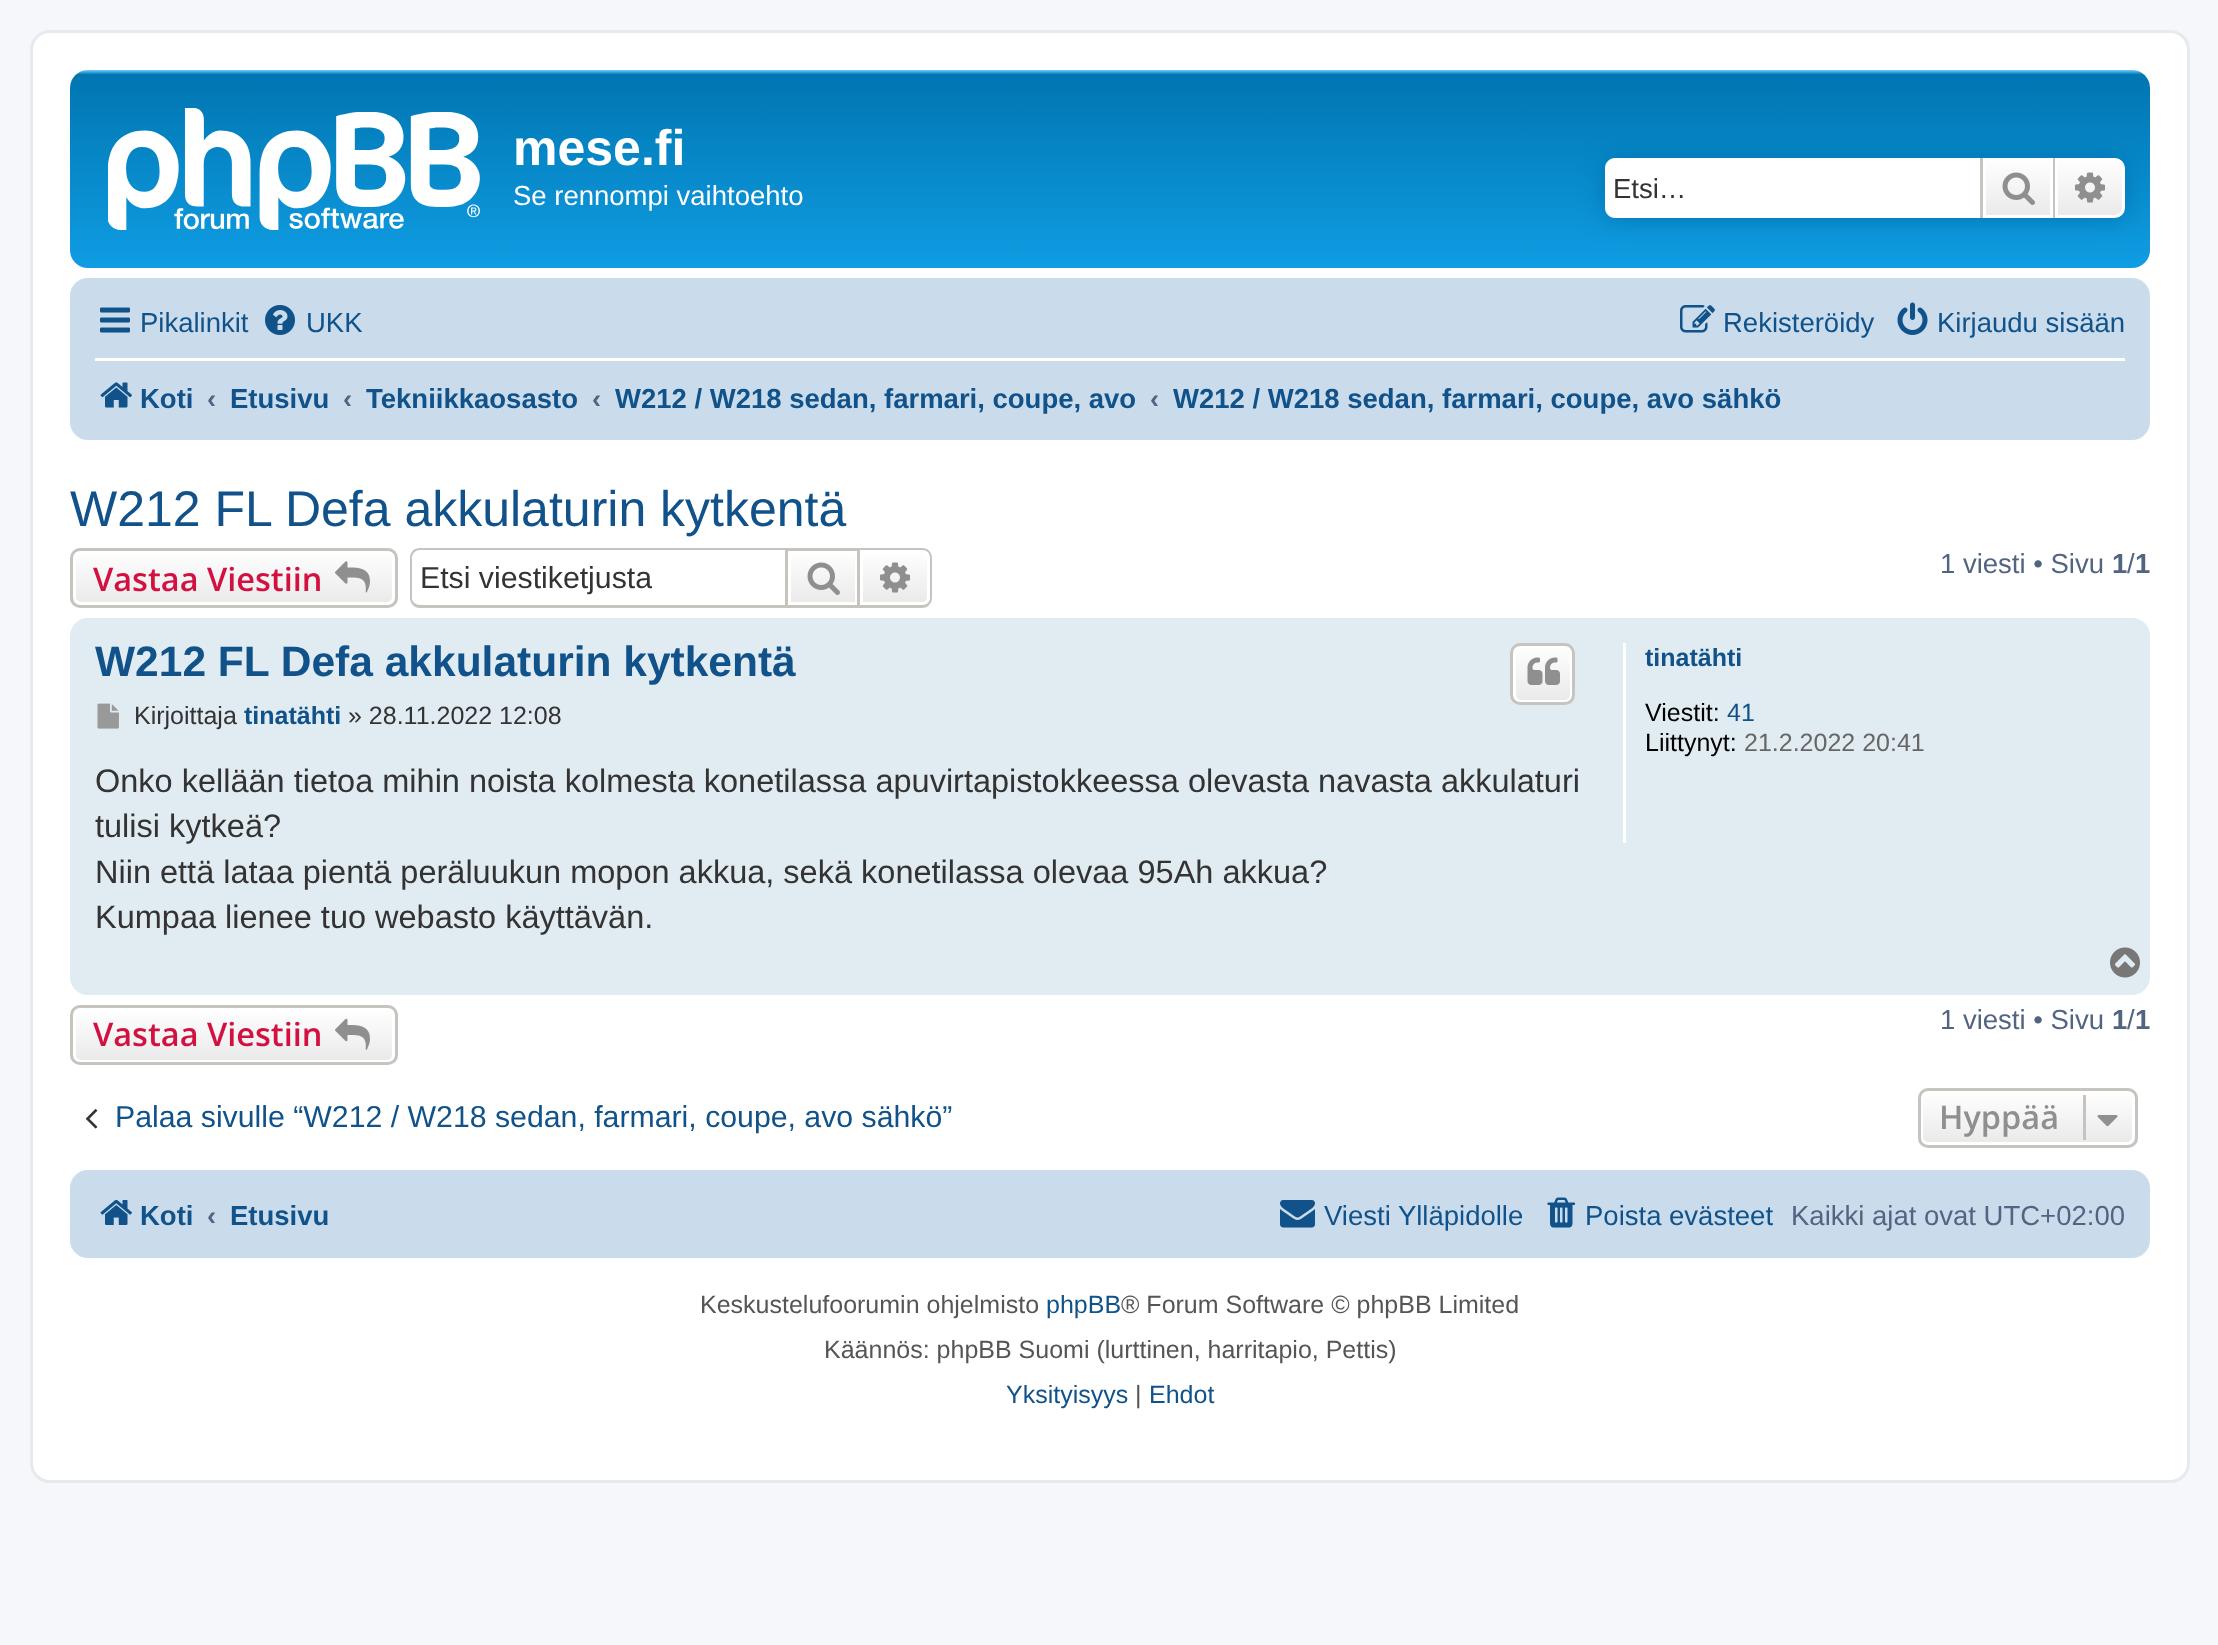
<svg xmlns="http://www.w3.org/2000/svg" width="2218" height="1645">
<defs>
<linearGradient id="g1" gradientUnits="userSpaceOnUse" x1="1110" y1="70" x2="1110" y2="300"><stop offset="0" stop-color="#6aceff"/><stop offset="0.02" stop-color="#0076b1"/><stop offset="1" stop-color="#12a3eb"/></linearGradient>
<linearGradient id="g2" gradientUnits="userSpaceOnUse" x1="2018" y1="158" x2="2018" y2="218"><stop offset="0" stop-color="#fff"/><stop offset="1" stop-color="#e9e9e9"/></linearGradient>
<linearGradient id="g3" gradientUnits="userSpaceOnUse" x1="2090" y1="158" x2="2090" y2="218"><stop offset="0" stop-color="#fff"/><stop offset="1" stop-color="#e9e9e9"/></linearGradient>
<clipPath id="clip1"><rect x="70" y="548" width="328" height="60" rx="10"/></clipPath>
<linearGradient id="g4" gradientUnits="userSpaceOnUse" x1="234" y1="550" x2="234" y2="605"><stop offset="0" stop-color="#fff"/><stop offset="1" stop-color="#e9e9e9"/></linearGradient>
<linearGradient id="g5" gradientUnits="userSpaceOnUse" x1="823" y1="550" x2="823" y2="605"><stop offset="0" stop-color="#fff"/><stop offset="1" stop-color="#e9e9e9"/></linearGradient>
<linearGradient id="g6" gradientUnits="userSpaceOnUse" x1="895" y1="550" x2="895" y2="605"><stop offset="0" stop-color="#fff"/><stop offset="1" stop-color="#e9e9e9"/></linearGradient>
<clipPath id="clip2"><rect x="1510" y="643" width="65" height="62" rx="10"/></clipPath>
<linearGradient id="g7" gradientUnits="userSpaceOnUse" x1="1543" y1="645" x2="1543" y2="703"><stop offset="0" stop-color="#fff"/><stop offset="1" stop-color="#e9e9e9"/></linearGradient>
<clipPath id="clip3"><rect x="70" y="1005" width="328" height="60" rx="10"/></clipPath>
<linearGradient id="g8" gradientUnits="userSpaceOnUse" x1="234" y1="1008" x2="234" y2="1063"><stop offset="0" stop-color="#fff"/><stop offset="1" stop-color="#e9e9e9"/></linearGradient>
<clipPath id="clip4"><rect x="1918" y="1088" width="220" height="60" rx="10"/></clipPath>
<linearGradient id="g9" gradientUnits="userSpaceOnUse" x1="2028" y1="1090" x2="2028" y2="1145"><stop offset="0" stop-color="#fff"/><stop offset="1" stop-color="#e9e9e9"/></linearGradient>
</defs>
<rect width="100%" height="100%" fill="#f5f7fa"/>
<rect x="31.5" y="31.5" width="2157" height="1450" rx="18.5" fill="#fff" stroke="#e6e9ed" stroke-width="3"/>
<rect x="70" y="70" width="2080" height="198" rx="18" fill="url(#g1)"/>
<image x="108" y="108" width="372" height="122" href="media/1.png"/>
<text x="513" y="165" style="font-family:Liberation Sans;font-size:50px;font-weight:bold;fill:#fff">mese.fi</text>
<text x="513" y="205" style="font-family:Liberation Sans;font-size:27.5px;fill:#fff">Se rennompi vaihtoehto</text>
<rect x="1605" y="158" width="520" height="60" rx="10" fill="#0075b0" filter="blur(12.5px)"/>
<path d="M1615 158h365v60h-365c-5.5 0-10-4.5-10-10v-40c0-5.5 4.5-10 10-10z" fill="#fff"/>
<text x="1613" y="198" style="font-family:Liberation Sans;font-size:27.5px;fill:#333">Etsi…</text>
<rect x="1986" y="161" width="64" height="54" fill="url(#g2)"/>
<rect x="1984.5" y="159.5" width="67" height="57" fill="none" stroke="#fff" stroke-width="3"/>
<rect x="2053" y="158" width="2" height="60" fill="#c7c3bf"/>
<rect x="1980" y="158" width="3" height="60" fill="#c7c3bf"/>
<image x="2002" y="172" width="33" height="33" href="media/2.png"/>
<path d="M2056.5 159.5h58.5c4.5 0 8.5 4 8.5 8.5v40c0 4.5-4 8.5-8.5 8.5h-58.5z" fill="url(#g3)" stroke="#fff" stroke-width="3"/>
<image x="2075" y="172" width="30" height="31" href="media/3.png"/>
<rect x="70" y="278" width="2080" height="162" rx="18" fill="#cadceb"/>
<image x="100" y="307" width="30" height="26" href="media/4.png"/>
<text x="140" y="332" style="font-family:Liberation Sans;font-size:27.5px;fill:#105289">Pikalinkit</text>
<image x="265" y="305" width="30" height="30" href="media/5.png"/>
<text x="306" y="332" style="font-family:Liberation Sans;font-size:27.5px;fill:#105289">UKK</text>
<image x="1680" y="305" width="35" height="28" href="media/6.png"/>
<text x="1723" y="332" style="font-family:Liberation Sans;font-size:27.5px;fill:#105289">Rekisteröidy</text>
<image x="1897" y="302" width="31" height="33" href="media/7.png"/>
<text x="1937" y="332" style="font-family:Liberation Sans;font-size:27.5px;fill:#105289">Kirjaudu sisään</text>
<rect x="95" y="358" width="2030" height="3" fill="#fff"/>
<image x="100" y="382" width="32" height="26" href="media/8.png"/>
<text x="140" y="408" style="font-family:Liberation Sans;font-size:27.5px;font-weight:bold;fill:#105289">Koti</text>
<text x="207" y="408" style="font-family:Liberation Sans;font-size:27.5px;font-weight:bold;fill:#536482">‹</text>
<text x="230" y="408" style="font-family:Liberation Sans;font-size:27.5px;font-weight:bold;fill:#105289">Etusivu</text>
<text x="343" y="408" style="font-family:Liberation Sans;font-size:27.5px;font-weight:bold;fill:#536482">‹</text>
<text x="366" y="408" style="font-family:Liberation Sans;font-size:27.5px;font-weight:bold;fill:#105289">Tekniikkaosasto</text>
<text x="592" y="408" style="font-family:Liberation Sans;font-size:27.5px;font-weight:bold;fill:#536482">‹</text>
<text x="615" y="408" style="font-family:Liberation Sans;font-size:27.5px;font-weight:bold;fill:#105289">W212 / W218 sedan, farmari, coupe, avo</text>
<text x="1150" y="408" style="font-family:Liberation Sans;font-size:27.5px;font-weight:bold;fill:#536482">‹</text>
<text x="1173" y="408" style="font-family:Liberation Sans;font-size:27.5px;font-weight:bold;fill:#105289">W212 / W218 sedan, farmari, coupe, avo sähkö</text>
<text x="70" y="526" style="font-family:Liberation Sans;font-size:50px;fill:#105289">W212 FL Defa akkulaturin kytkentä</text>
<text x="1940" y="573" style="font-family:Liberation Sans;font-size:27.5px;fill:#536482">1 viesti • Sivu</text>
<text x="2112" y="573" style="font-family:Liberation Sans;font-size:27.5px;font-weight:bold;fill:#536482">1 1</text>
<text x="2127" y="573" style="font-family:Liberation Sans;font-size:27.5px;fill:#536482">/</text>
<g clip-path="url(#clip1)">
<rect x="70" y="550" width="328" height="55" fill="url(#g4)"/>
</g>
<rect x="74.5" y="551.5" width="319" height="52" rx="6.5" fill="none" stroke="#fff" stroke-width="3"/>
<rect x="71.5" y="549.5" width="325" height="57" rx="8.5" fill="none" stroke="#c7c3bf" stroke-width="3"/>
<text x="93" y="591" style="font-family:Open Sans;font-size:32.5px;font-weight:600;fill:#d31141">Vastaa Viestiin</text>
<image x="335" y="561" width="35" height="32" href="media/9.png"/>
<path d="M420 548h365v60h-365c-6 0-10-5-10-10v-40c0-6 4-10 10-10zm0 2h365v55h-365c-4 0-8-3-8-7v-40c0-5 4-8 8-8z" fill="#c7c3bf" fill-rule="evenodd"/>
<text x="420" y="588" style="font-family:Liberation Sans;font-size:30.25px;fill:#333">Etsi viestiketjusta</text>
<rect x="791" y="556" width="64" height="46" fill="url(#g5)"/>
<rect x="786.5" y="549.5" width="72" height="57" fill="none" stroke="#c7c3bf" stroke-width="3"/>
<image x="807" y="562" width="33" height="33" href="media/10.png"/>
<path d="M861.5 551.5h60.5c3.5 0 6.5 3 6.5 6.5v39c0 3.5-3 6.5-6.5 6.5h-60.5z" fill="url(#g6)" stroke="#fff" stroke-width="3"/>
<path d="M860 548h62c6 0 10 4 10 10v40c0 5-4 10-10 10h-62zm0 2h62c5 0 8 3 8 8v40c0 4-3 7-8 7h-62z" fill="#c7c3bf" fill-rule="evenodd"/>
<image x="880" y="562" width="30" height="31" href="media/11.png"/>
<rect x="70" y="618" width="2080" height="377" rx="18" fill="#e1ebf2"/>
<text x="95" y="676" style="font-family:Liberation Sans;font-size:42.5px;font-weight:bold;fill:#105289">W212 FL Defa akkulaturin kytkentä</text>
<g clip-path="url(#clip2)">
<rect x="1510" y="645" width="65" height="58" fill="url(#g7)"/>
</g>
<rect x="1514.5" y="646.5" width="57" height="55" rx="6.5" fill="none" stroke="#fff" stroke-width="3"/>
<rect x="1511.5" y="644.5" width="62" height="59" rx="8.5" fill="none" stroke="#c7c3bf" stroke-width="3"/>
<image x="1527" y="657" width="33" height="28" href="media/12.png"/>
<image x="97" y="703" width="22" height="26" href="media/13.png"/>
<text x="134" y="724" style="font-family:Liberation Sans;font-size:25px;fill:#333">Kirjoittaja</text>
<text x="244" y="724" style="font-family:Liberation Sans;font-size:25px;font-weight:bold;fill:#105289">tinatähti</text>
<text x="348" y="724" style="font-family:Liberation Sans;font-size:25px;fill:#333">» 28.11.2022 12:08</text>
<text x="95" y="792" style="font-family:Liberation Sans;font-size:32.5px;fill:#333">Onko kellään tietoa mihin noista kolmesta konetilassa apuvirtapistokkeessa olevasta navasta akkulaturi</text>
<text x="95" y="837" style="font-family:Liberation Sans;font-size:32.5px;fill:#333">tulisi kytkeä?</text>
<text x="95" y="883" style="font-family:Liberation Sans;font-size:32.5px;fill:#333">Niin että lataa pientä peräluukun mopon akkua, sekä konetilassa olevaa 95Ah akkua?</text>
<text x="95" y="928" style="font-family:Liberation Sans;font-size:32.5px;fill:#333">Kumpaa lienee tuo webasto käyttävän.</text>
<rect x="1623" y="643" width="3" height="200" fill="#fff"/>
<text x="1645" y="666" style="font-family:Liberation Sans;font-size:25px;font-weight:bold;fill:#105289">tinatähti</text>
<text x="1645" y="721" style="font-family:Liberation Sans;font-size:25px;fill:#000">Viestit:</text>
<text x="1727" y="721" style="font-family:Liberation Sans;font-size:25px;fill:#105289">41</text>
<text x="1645" y="751" style="font-family:Liberation Sans;font-size:25px;fill:#000">Liittynyt:</text>
<text x="1744" y="751" style="font-family:Liberation Sans;font-size:25px;fill:#666">21.2.2022 20:41</text>
<image x="2110" y="947" width="30" height="31" href="media/14.png"/>
<g clip-path="url(#clip3)">
<rect x="70" y="1008" width="328" height="55" fill="url(#g8)"/>
</g>
<rect x="74.5" y="1009.5" width="319" height="52" rx="6.5" fill="none" stroke="#fff" stroke-width="3"/>
<rect x="71.5" y="1006.5" width="325" height="57" rx="8.5" fill="none" stroke="#c7c3bf" stroke-width="3"/>
<text x="93" y="1046" style="font-family:Open Sans;font-size:32.5px;font-weight:600;fill:#d31141">Vastaa Viestiin</text>
<image x="335" y="1018" width="35" height="32" href="media/15.png"/>
<text x="1940" y="1029" style="font-family:Liberation Sans;font-size:27.5px;fill:#536482">1 viesti • Sivu</text>
<text x="2112" y="1029" style="font-family:Liberation Sans;font-size:27.5px;font-weight:bold;fill:#536482">1 1</text>
<text x="2127" y="1029" style="font-family:Liberation Sans;font-size:27.5px;fill:#536482">/</text>
<image x="85" y="1109" width="13" height="20" href="media/16.png"/>
<text x="115" y="1127" style="font-family:Liberation Sans;font-size:30.25px;fill:#105289">Palaa sivulle “W212 / W218 sedan, farmari, coupe, avo sähkö”</text>
<g clip-path="url(#clip4)">
<rect x="1918" y="1090" width="220" height="55" fill="url(#g9)"/>
</g>
<rect x="1921.5" y="1091.5" width="212" height="52" rx="6.5" fill="none" stroke="#fff" stroke-width="3"/>
<rect x="1919.5" y="1089.5" width="217" height="57" rx="8.5" fill="none" stroke="#c7c3bf" stroke-width="3"/>
<text x="1939" y="1129" style="font-family:Open Sans;font-size:32.5px;font-weight:600;fill:#8f8f8f">Hyppää</text>
<rect x="2083" y="1095" width="3" height="45" fill="#c7c3bf"/>
<image x="2097" y="1115" width="21" height="12" href="media/17.png"/>
<rect x="70" y="1170" width="2080" height="88" rx="18" fill="#cadceb"/>
<image x="100" y="1199" width="32" height="26" href="media/18.png"/>
<text x="140" y="1225" style="font-family:Liberation Sans;font-size:27.5px;font-weight:bold;fill:#105289">Koti</text>
<text x="207" y="1225" style="font-family:Liberation Sans;font-size:27.5px;font-weight:bold;fill:#536482">‹</text>
<text x="230" y="1225" style="font-family:Liberation Sans;font-size:27.5px;font-weight:bold;fill:#105289">Etusivu</text>
<image x="1280" y="1200" width="35" height="28" href="media/19.png"/>
<text x="1324" y="1225" style="font-family:Liberation Sans;font-size:27.5px;fill:#105289">Viesti Ylläpidolle</text>
<image x="1547" y="1197" width="28" height="31" href="media/20.png"/>
<text x="1585" y="1225" style="font-family:Liberation Sans;font-size:27.5px;fill:#105289">Poista evästeet</text>
<text x="1791" y="1225" style="font-family:Liberation Sans;font-size:27.5px;fill:#536482">Kaikki ajat ovat UTC+02:00</text>
<text x="700" y="1313" style="font-family:Liberation Sans;font-size:25px;fill:#555">Keskustelufoorumin ohjelmisto</text>
<text x="1046" y="1313" style="font-family:Liberation Sans;font-size:25px;fill:#105289">phpBB</text>
<text x="1121" y="1313" style="font-family:Liberation Sans;font-size:25px;fill:#555">® Forum Software © phpBB Limited</text>
<text x="824" y="1358" style="font-family:Liberation Sans;font-size:25px;fill:#555">Käännös: phpBB Suomi (lurttinen, harritapio, Pettis)</text>
<text x="1006" y="1403" style="font-family:Liberation Sans;font-size:25px;fill:#105289">Yksityisyys</text>
<text x="1135" y="1403" style="font-family:Liberation Sans;font-size:25px;fill:#555">|</text>
<text x="1149" y="1403" style="font-family:Liberation Sans;font-size:25px;fill:#105289">Ehdot</text>
</svg>
